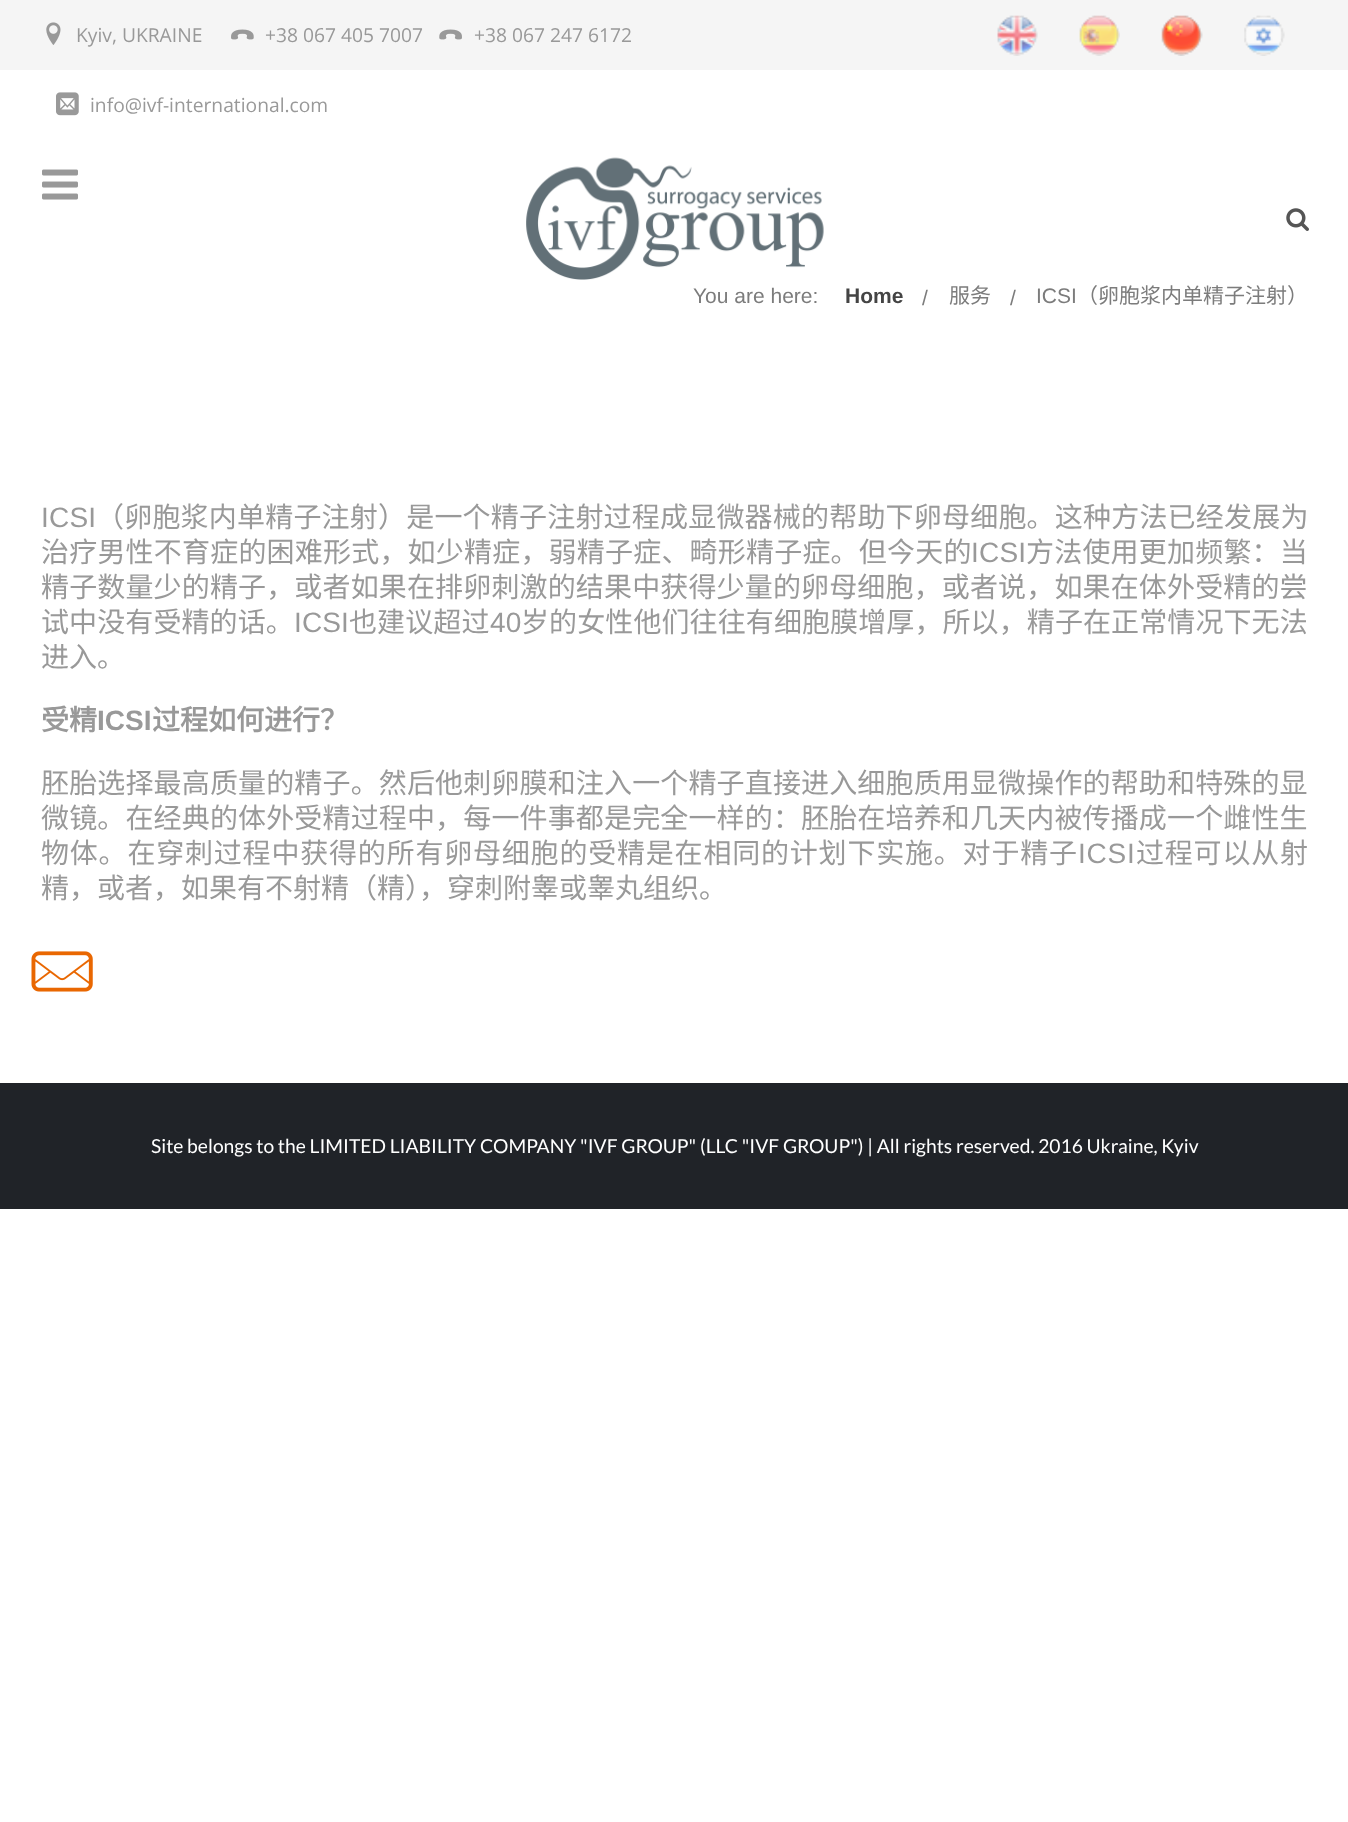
<svg xmlns="http://www.w3.org/2000/svg" width="1348" height="1822">
<rect width="100%" height="100%" fill="#fff"/>
<rect width="1348" height="70" fill="#f5f5f5"/>
<image x="46" y="22" width="15" height="23" href="media/1.png"/>
<text x="76" y="42" style="font-family:Open Sans;font-size:19.25px;fill:#999">Kyiv, UKRAINE</text>
<image x="231" y="29" width="23" height="11" href="media/2.png"/>
<text x="265" y="42" style="font-family:Open Sans;font-size:19.25px;fill:#999">+38 067 405 7007</text>
<image x="439" y="29" width="23" height="11" href="media/3.png"/>
<text x="474" y="42" style="font-family:Open Sans;font-size:19.25px;fill:#999">+38 067 247 6172</text>
<image x="56" y="92" width="23" height="24" href="media/4.png"/>
<text x="90" y="112" style="font-family:Open Sans;font-size:19.25px;fill:#999">info@ivf-international.com</text>
<image x="997" y="15" width="41" height="41" href="media/5.png"/>
<image x="1079" y="15" width="41" height="41" href="media/6.png"/>
<image x="1161" y="15" width="42" height="41" href="media/7.png"/>
<image x="1244" y="15" width="41" height="41" href="media/8.png"/>
<image x="42" y="169" width="36" height="31" href="media/9.png"/>
<image x="526" y="157" width="298" height="123" href="media/10.png"/>
<image x="1286" y="208" width="23" height="23" href="media/11.png"/>
<text x="693" y="303" style="font-family:Liberation Sans;font-size:21px;fill:#7c7c7c">You are here:</text>
<text x="845" y="303" style="font-family:Liberation Sans;font-size:21px;font-weight:bold;fill:#444">Home</text>
<text x="922" y="305" style="font-family:Liberation Sans;font-size:21px;fill:#7c7c7c">/</text>
<text x="949" y="303" style="font-family:Noto Sans CJK SC;font-size:21px;fill:#7c7c7c">服务</text>
<text x="1010" y="305" style="font-family:Liberation Sans;font-size:21px;fill:#7c7c7c">/</text>
<text x="1036" y="303" style="font-family:Liberation Sans;font-size:21px;fill:#7c7c7c">ICSI</text>
<text x="1077" y="303" style="font-family:Noto Sans CJK SC;font-size:21px;fill:#7c7c7c">（卵胞浆内单精子注射）</text>
<text x="41" y="527" style="font-family:Liberation Sans;font-size:28px;letter-spacing:0.2px;fill:#999">ICSI</text>
<text x="96" y="527" style="font-family:Noto Sans CJK SC;font-size:28px;letter-spacing:0.2px;fill:#999">（卵胞浆内单精子注射）是一个精子注射过程成显微器械的帮助下卵母细胞。这种方法已经发展为</text>
<text x="41" y="562" style="font-family:Noto Sans CJK SC;font-size:28px;letter-spacing:0.2px;fill:#999">治疗男性不育症的困难形式，如少精症，弱精子症、畸形精子症。但今天的</text>
<text x="971" y="562" style="font-family:Liberation Sans;font-size:28px;letter-spacing:0.2px;fill:#999">ICSI</text>
<text x="1026" y="562" style="font-family:Noto Sans CJK SC;font-size:28px;letter-spacing:0.2px;fill:#999">方法使用更加频繁：当</text>
<text x="41" y="597" style="font-family:Noto Sans CJK SC;font-size:28px;letter-spacing:0.15px;fill:#999">精子数量少的精子，或者如果在排卵刺激的结果中获得少量的卵母细胞，或者说，如果在体外受精的尝</text>
<text x="41" y="632" style="font-family:Noto Sans CJK SC;font-size:28px;letter-spacing:0.1px;fill:#999">试中没有受精的话。</text>
<text x="294" y="632" style="font-family:Liberation Sans;font-size:28px;letter-spacing:0.1px;fill:#999">ICSI</text>
<text x="349" y="632" style="font-family:Noto Sans CJK SC;font-size:28px;letter-spacing:0.1px;fill:#999">也建议超过</text>
<text x="490" y="632" style="font-family:Liberation Sans;font-size:28px;letter-spacing:0.1px;fill:#999">40</text>
<text x="521" y="632" style="font-family:Noto Sans CJK SC;font-size:28px;letter-spacing:0.1px;fill:#999">岁的女性他们往往有细胞膜增厚，所以，精子在正常情况下无法</text>
<text x="41" y="667" style="font-family:Noto Sans CJK SC;font-size:28px;fill:#999">进入。</text>
<text x="41" y="730" style="font-family:Noto Sans CJK SC;font-size:28px;font-weight:bold;fill:#999">受精</text>
<text x="97" y="730" style="font-family:Liberation Sans;font-size:28px;font-weight:bold;fill:#999">ICSI</text>
<text x="152" y="730" style="font-family:Noto Sans CJK SC;font-size:28px;font-weight:bold;fill:#999">过程如何进行？</text>
<text x="41" y="793" style="font-family:Noto Sans CJK SC;font-size:28px;letter-spacing:0.15px;fill:#999">胚胎选择最高质量的精子。然后他刺卵膜和注入一个精子直接进入细胞质用显微操作的帮助和特殊的显</text>
<text x="41" y="828" style="font-family:Noto Sans CJK SC;font-size:28px;letter-spacing:0.15px;fill:#999">微镜。在经典的体外受精过程中，每一件事都是完全一样的：胚胎在培养和几天内被传播成一个雌性生</text>
<text x="41" y="863" style="font-family:Noto Sans CJK SC;font-size:28px;letter-spacing:0.8px;fill:#999">物体。在穿刺过程中获得的所有卵母细胞的受精是在相同的计划下实施。对于精子</text>
<text x="1078" y="863" style="font-family:Liberation Sans;font-size:28px;letter-spacing:0.8px;fill:#999">ICSI</text>
<text x="1136" y="863" style="font-family:Noto Sans CJK SC;font-size:28px;letter-spacing:0.8px;fill:#999">过程可以从射</text>
<text x="41" y="898" style="font-family:Noto Sans CJK SC;font-size:28px;fill:#999">精，或者，如果有不射精（精），穿刺附睾或睾丸组织。</text>
<rect y="1083" width="1348" height="126" fill="#202328"/>
<text x="151" y="1153" style="font-family:Lato;font-size:19.25px;fill:#fff">Site belongs to the LIMITED LIABILITY COMPANY "IVF GROUP" (LLC "IVF GROUP") | All rights reserved. 2016 Ukraine, Kyiv</text>
<image x="31" y="951" width="62" height="41" href="media/12.png"/>
</svg>
